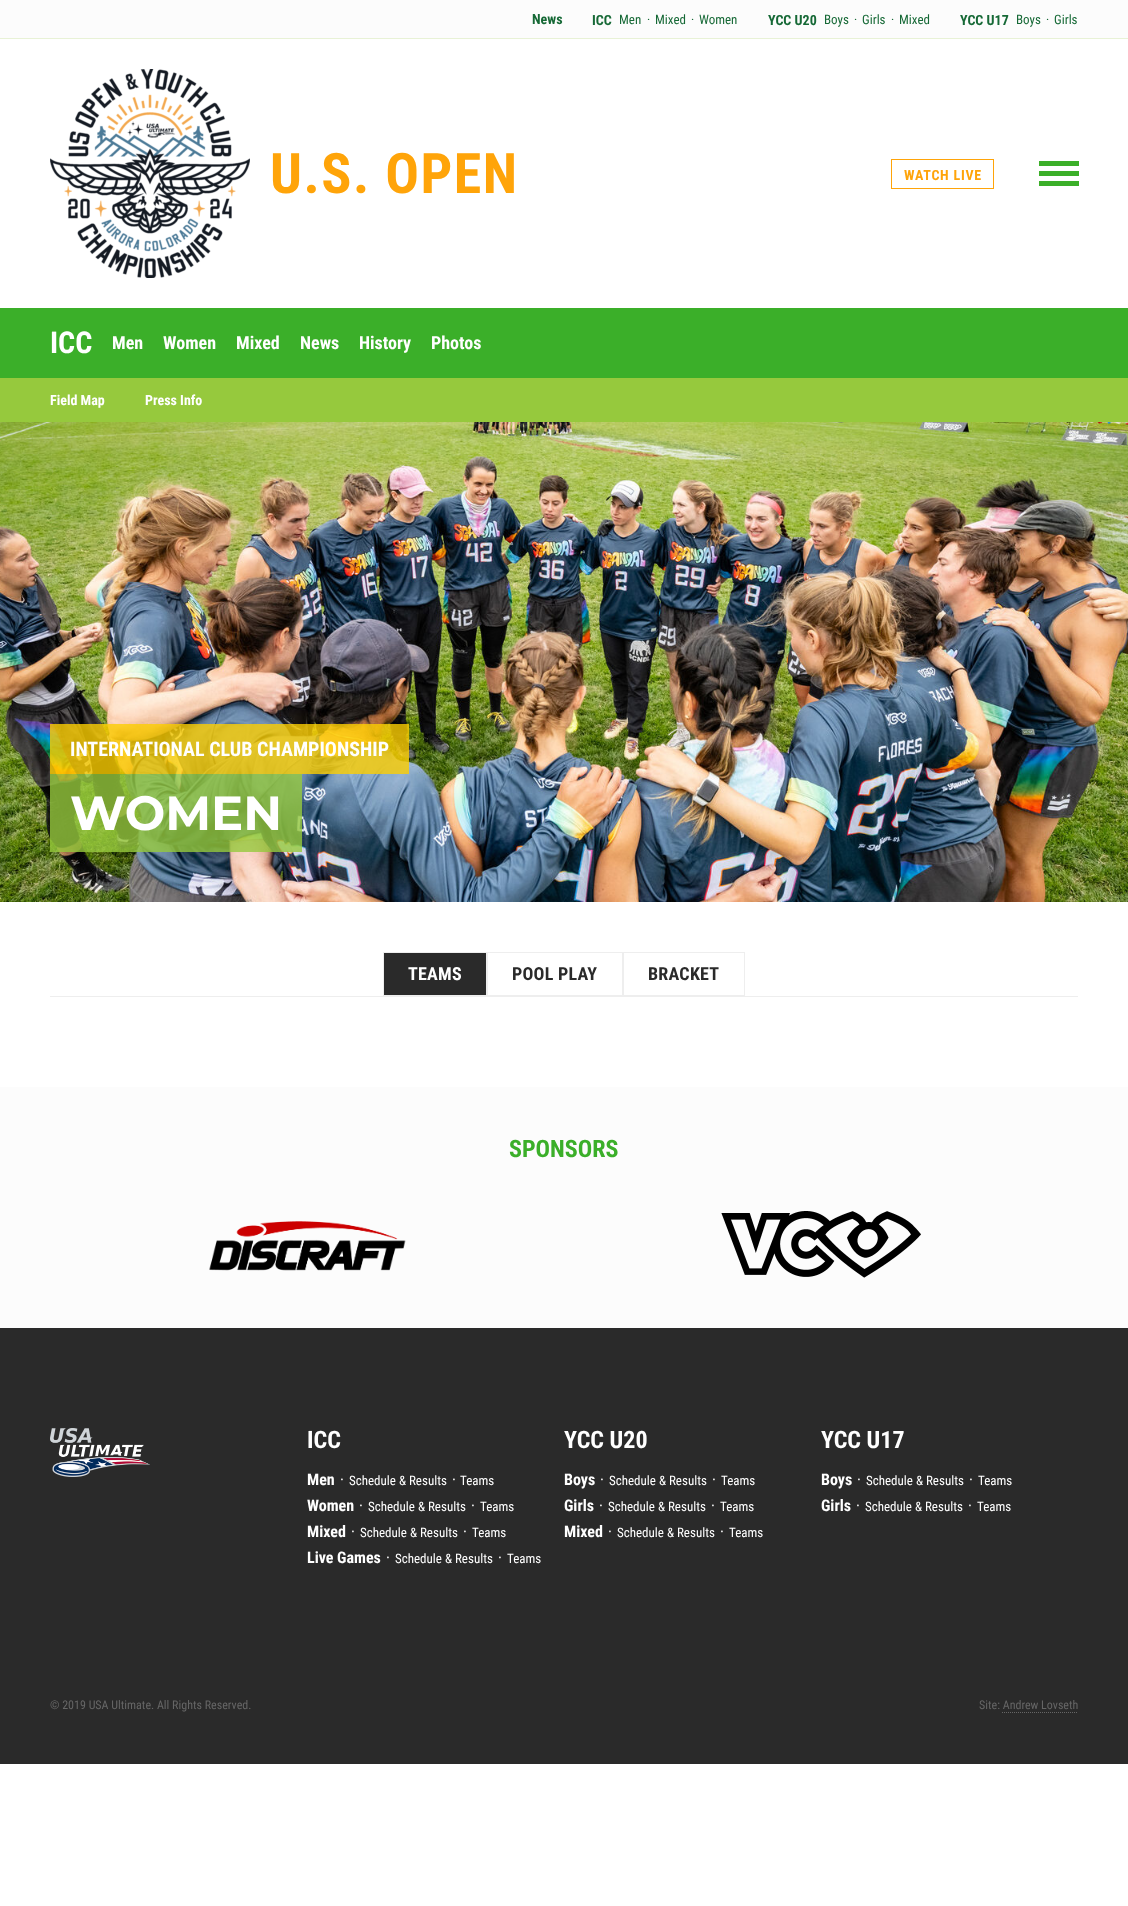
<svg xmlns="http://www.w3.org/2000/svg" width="1128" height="1906">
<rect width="100%" height="100%" fill="#fff"/>
<rect width="1128" height="38" fill="#fcfcfc"/>
<rect y="38" width="1128" height="1" fill="#e8f2d6"/>
<text x="532" y="24" style="font-family:Roboto Condensed;font-size:14px;font-weight:bold;fill:#166936">News</text>
<text x="592" y="25" style="font-family:Roboto Condensed;font-size:14px;font-weight:bold;fill:#166936">ICC</text>
<text x="619" y="24" style="font-family:Roboto Condensed;font-size:13px;fill:#166936">Men</text>
<text x="647" y="24" style="font-family:Roboto Condensed;font-size:13px;fill:#166936">·</text>
<text x="655" y="24" style="font-family:Roboto Condensed;font-size:13px;fill:#166936">Mixed</text>
<text x="691" y="24" style="font-family:Roboto Condensed;font-size:13px;fill:#166936">·</text>
<text x="699" y="24" style="font-family:Roboto Condensed;font-size:13px;fill:#166936">Women</text>
<text x="768" y="25" style="font-family:Roboto Condensed;font-size:14px;font-weight:bold;fill:#166936">YCC U20</text>
<text x="824" y="24" style="font-family:Roboto Condensed;font-size:13px;fill:#166936">Boys</text>
<text x="854" y="24" style="font-family:Roboto Condensed;font-size:13px;fill:#166936">·</text>
<text x="862" y="24" style="font-family:Roboto Condensed;font-size:13px;fill:#166936">Girls</text>
<text x="891" y="24" style="font-family:Roboto Condensed;font-size:13px;fill:#166936">·</text>
<text x="899" y="24" style="font-family:Roboto Condensed;font-size:13px;fill:#166936">Mixed</text>
<text x="960" y="25" style="font-family:Roboto Condensed;font-size:14px;font-weight:bold;fill:#166936">YCC U17</text>
<text x="1016" y="24" style="font-family:Roboto Condensed;font-size:13px;fill:#166936">Boys</text>
<text x="1046" y="24" style="font-family:Roboto Condensed;font-size:13px;fill:#166936">·</text>
<text x="1054" y="24" style="font-family:Roboto Condensed;font-size:13px;fill:#166936">Girls</text>
<image x="50" y="69" width="200" height="209" href="media/1.png"/>
<text x="270" y="193" style="font-family:Roboto Condensed;font-size:56px;font-weight:bold;letter-spacing:1.5px;fill:#ffa409">U.S. OPEN</text>
<rect x="891.5" y="159.5" width="102" height="29" fill="none" stroke="#ffa409"/>
<text x="904" y="180" style="font-family:Roboto Condensed;font-size:14px;font-weight:bold;letter-spacing:0.75px;fill:#ffa409">WATCH LIVE</text>
<rect x="1039" y="171" width="40" height="5" fill="#3baf29"/>
<rect x="1039" y="161" width="40" height="5" fill="#3baf29"/>
<rect x="1039" y="181" width="40" height="5" fill="#3baf29"/>
<rect y="308" width="1128" height="70" fill="#3baf29"/>
<text x="50" y="353" style="font-family:Roboto Condensed;font-size:30px;font-weight:bold;fill:#fff">ICC</text>
<text x="112" y="349" style="font-family:Roboto Condensed;font-size:18px;font-weight:bold;fill:#fff">Men</text>
<text x="163" y="349" style="font-family:Roboto Condensed;font-size:18px;font-weight:bold;fill:#fff">Women</text>
<text x="236" y="349" style="font-family:Roboto Condensed;font-size:18px;font-weight:bold;fill:#fff">Mixed</text>
<text x="300" y="349" style="font-family:Roboto Condensed;font-size:18px;font-weight:bold;fill:#fff">News</text>
<text x="359" y="349" style="font-family:Roboto Condensed;font-size:18px;font-weight:bold;fill:#fff">History</text>
<text x="431" y="349" style="font-family:Roboto Condensed;font-size:18px;font-weight:bold;fill:#fff">Photos</text>
<rect y="378" width="1128" height="44" fill="#96c93d"/>
<text x="50" y="405" style="font-family:Roboto Condensed;font-size:14px;font-weight:bold;fill:#fff">Field Map</text>
<text x="145" y="405" style="font-family:Roboto Condensed;font-size:14px;font-weight:bold;fill:#fff">Press Info</text>
<image x="0" y="422" width="1128" height="480" href="media/2.png"/>
<rect x="50" y="724" width="359" height="50" fill="#fcce01cc"/>
<text x="70" y="756" style="font-family:Roboto Condensed;font-size:20px;font-weight:bold;fill:#fff">INTERNATIONAL CLUB CHAMPIONSHIP</text>
<rect x="50" y="774" width="252" height="78" fill="#96c93dcc"/>
<text x="70" y="830" style="font-family:Montserrat;font-size:48px;font-weight:bold;fill:#fff">WOMEN</text>
<rect x="50" y="996" width="1028" height="1" fill="#eee"/>
<rect x="383.5" y="952.5" width="103" height="43" fill="#2a2a2a" stroke="#eee"/>
<text x="408" y="980" style="font-family:Roboto Condensed;font-size:18px;font-weight:bold;letter-spacing:0.25px;fill:#fff">TEAMS</text>
<rect x="487.5" y="952.5" width="135" height="43" fill="none" stroke="#eee"/>
<text x="512" y="980" style="font-family:Roboto Condensed;font-size:18px;font-weight:bold;letter-spacing:0.25px;fill:#2a2a2a">POOL PLAY</text>
<rect x="623.5" y="952.5" width="121" height="43" fill="none" stroke="#eee"/>
<text x="648" y="980" style="font-family:Roboto Condensed;font-size:18px;font-weight:bold;letter-spacing:0.25px;fill:#2a2a2a">BRACKET</text>
<rect y="1087" width="1128" height="241" fill="#fcfcfc"/>
<text x="509" y="1157" style="font-family:Roboto Condensed;font-size:24px;font-weight:bold;fill:#3baf29">SPONSORS</text>
<image x="209" y="1221" width="197" height="50" href="media/3.png"/>
<image x="721" y="1211" width="200" height="67" href="media/4.png"/>
<rect y="1328" width="1128" height="436" fill="#2a2a2a"/>
<image x="50" y="1428" width="100" height="49" href="media/5.png"/>
<text x="307" y="1448" style="font-family:Roboto Condensed;font-size:24px;font-weight:bold;fill:#fff">ICC</text>
<text x="307" y="1485" style="font-family:Roboto Condensed;font-size:16px;font-weight:bold;fill:#fff">Men</text>
<text x="340" y="1485" style="font-family:Roboto Condensed;font-size:16px;fill:#fff">·</text>
<text x="349" y="1485" style="font-family:Roboto Condensed;font-size:13px;fill:#fff">Schedule &amp; Results</text>
<text x="452" y="1485" style="font-family:Roboto Condensed;font-size:16px;fill:#fff">·</text>
<text x="460" y="1485" style="font-family:Roboto Condensed;font-size:13px;fill:#fff">Teams</text>
<text x="307" y="1511" style="font-family:Roboto Condensed;font-size:16px;font-weight:bold;fill:#fff">Women</text>
<text x="359" y="1511" style="font-family:Roboto Condensed;font-size:16px;fill:#fff">·</text>
<text x="368" y="1511" style="font-family:Roboto Condensed;font-size:13px;fill:#fff">Schedule &amp; Results</text>
<text x="471" y="1511" style="font-family:Roboto Condensed;font-size:16px;fill:#fff">·</text>
<text x="480" y="1511" style="font-family:Roboto Condensed;font-size:13px;fill:#fff">Teams</text>
<text x="307" y="1537" style="font-family:Roboto Condensed;font-size:16px;font-weight:bold;fill:#fff">Mixed</text>
<text x="351" y="1537" style="font-family:Roboto Condensed;font-size:16px;fill:#fff">·</text>
<text x="360" y="1537" style="font-family:Roboto Condensed;font-size:13px;fill:#fff">Schedule &amp; Results</text>
<text x="463" y="1537" style="font-family:Roboto Condensed;font-size:16px;fill:#fff">·</text>
<text x="472" y="1537" style="font-family:Roboto Condensed;font-size:13px;fill:#fff">Teams</text>
<text x="307" y="1563" style="font-family:Roboto Condensed;font-size:16px;font-weight:bold;fill:#fff">Live Games</text>
<text x="386" y="1563" style="font-family:Roboto Condensed;font-size:16px;fill:#fff">·</text>
<text x="395" y="1563" style="font-family:Roboto Condensed;font-size:13px;fill:#fff">Schedule &amp; Results</text>
<text x="498" y="1563" style="font-family:Roboto Condensed;font-size:16px;fill:#fff">·</text>
<text x="507" y="1563" style="font-family:Roboto Condensed;font-size:13px;fill:#fff">Teams</text>
<text x="564" y="1448" style="font-family:Roboto Condensed;font-size:24px;font-weight:bold;fill:#fff">YCC U20</text>
<text x="564" y="1485" style="font-family:Roboto Condensed;font-size:16px;font-weight:bold;fill:#fff">Boys</text>
<text x="600" y="1485" style="font-family:Roboto Condensed;font-size:16px;fill:#fff">·</text>
<text x="609" y="1485" style="font-family:Roboto Condensed;font-size:13px;fill:#fff">Schedule &amp; Results</text>
<text x="712" y="1485" style="font-family:Roboto Condensed;font-size:16px;fill:#fff">·</text>
<text x="721" y="1485" style="font-family:Roboto Condensed;font-size:13px;fill:#fff">Teams</text>
<text x="564" y="1511" style="font-family:Roboto Condensed;font-size:16px;font-weight:bold;fill:#fff">Girls</text>
<text x="599" y="1511" style="font-family:Roboto Condensed;font-size:16px;fill:#fff">·</text>
<text x="608" y="1511" style="font-family:Roboto Condensed;font-size:13px;fill:#fff">Schedule &amp; Results</text>
<text x="711" y="1511" style="font-family:Roboto Condensed;font-size:16px;fill:#fff">·</text>
<text x="720" y="1511" style="font-family:Roboto Condensed;font-size:13px;fill:#fff">Teams</text>
<text x="564" y="1537" style="font-family:Roboto Condensed;font-size:16px;font-weight:bold;fill:#fff">Mixed</text>
<text x="608" y="1537" style="font-family:Roboto Condensed;font-size:16px;fill:#fff">·</text>
<text x="617" y="1537" style="font-family:Roboto Condensed;font-size:13px;fill:#fff">Schedule &amp; Results</text>
<text x="720" y="1537" style="font-family:Roboto Condensed;font-size:16px;fill:#fff">·</text>
<text x="729" y="1537" style="font-family:Roboto Condensed;font-size:13px;fill:#fff">Teams</text>
<text x="821" y="1448" style="font-family:Roboto Condensed;font-size:24px;font-weight:bold;fill:#fff">YCC U17</text>
<text x="821" y="1485" style="font-family:Roboto Condensed;font-size:16px;font-weight:bold;fill:#fff">Boys</text>
<text x="857" y="1485" style="font-family:Roboto Condensed;font-size:16px;fill:#fff">·</text>
<text x="866" y="1485" style="font-family:Roboto Condensed;font-size:13px;fill:#fff">Schedule &amp; Results</text>
<text x="969" y="1485" style="font-family:Roboto Condensed;font-size:16px;fill:#fff">·</text>
<text x="978" y="1485" style="font-family:Roboto Condensed;font-size:13px;fill:#fff">Teams</text>
<text x="821" y="1511" style="font-family:Roboto Condensed;font-size:16px;font-weight:bold;fill:#fff">Girls</text>
<text x="856" y="1511" style="font-family:Roboto Condensed;font-size:16px;fill:#fff">·</text>
<text x="865" y="1511" style="font-family:Roboto Condensed;font-size:13px;fill:#fff">Schedule &amp; Results</text>
<text x="968" y="1511" style="font-family:Roboto Condensed;font-size:16px;fill:#fff">·</text>
<text x="977" y="1511" style="font-family:Roboto Condensed;font-size:13px;fill:#fff">Teams</text>
<text x="50" y="1709" style="font-family:Roboto Condensed;font-size:12px;fill:#666">© 2019 USA Ultimate. All Rights Reserved.</text>
<text x="979" y="1709" style="font-family:Roboto Condensed;font-size:12px;fill:#666">Site: Andrew Lovseth</text>
<path d="M1002 1712.5h76" fill="none" stroke="#666" stroke-dasharray="1 1"/>
</svg>
